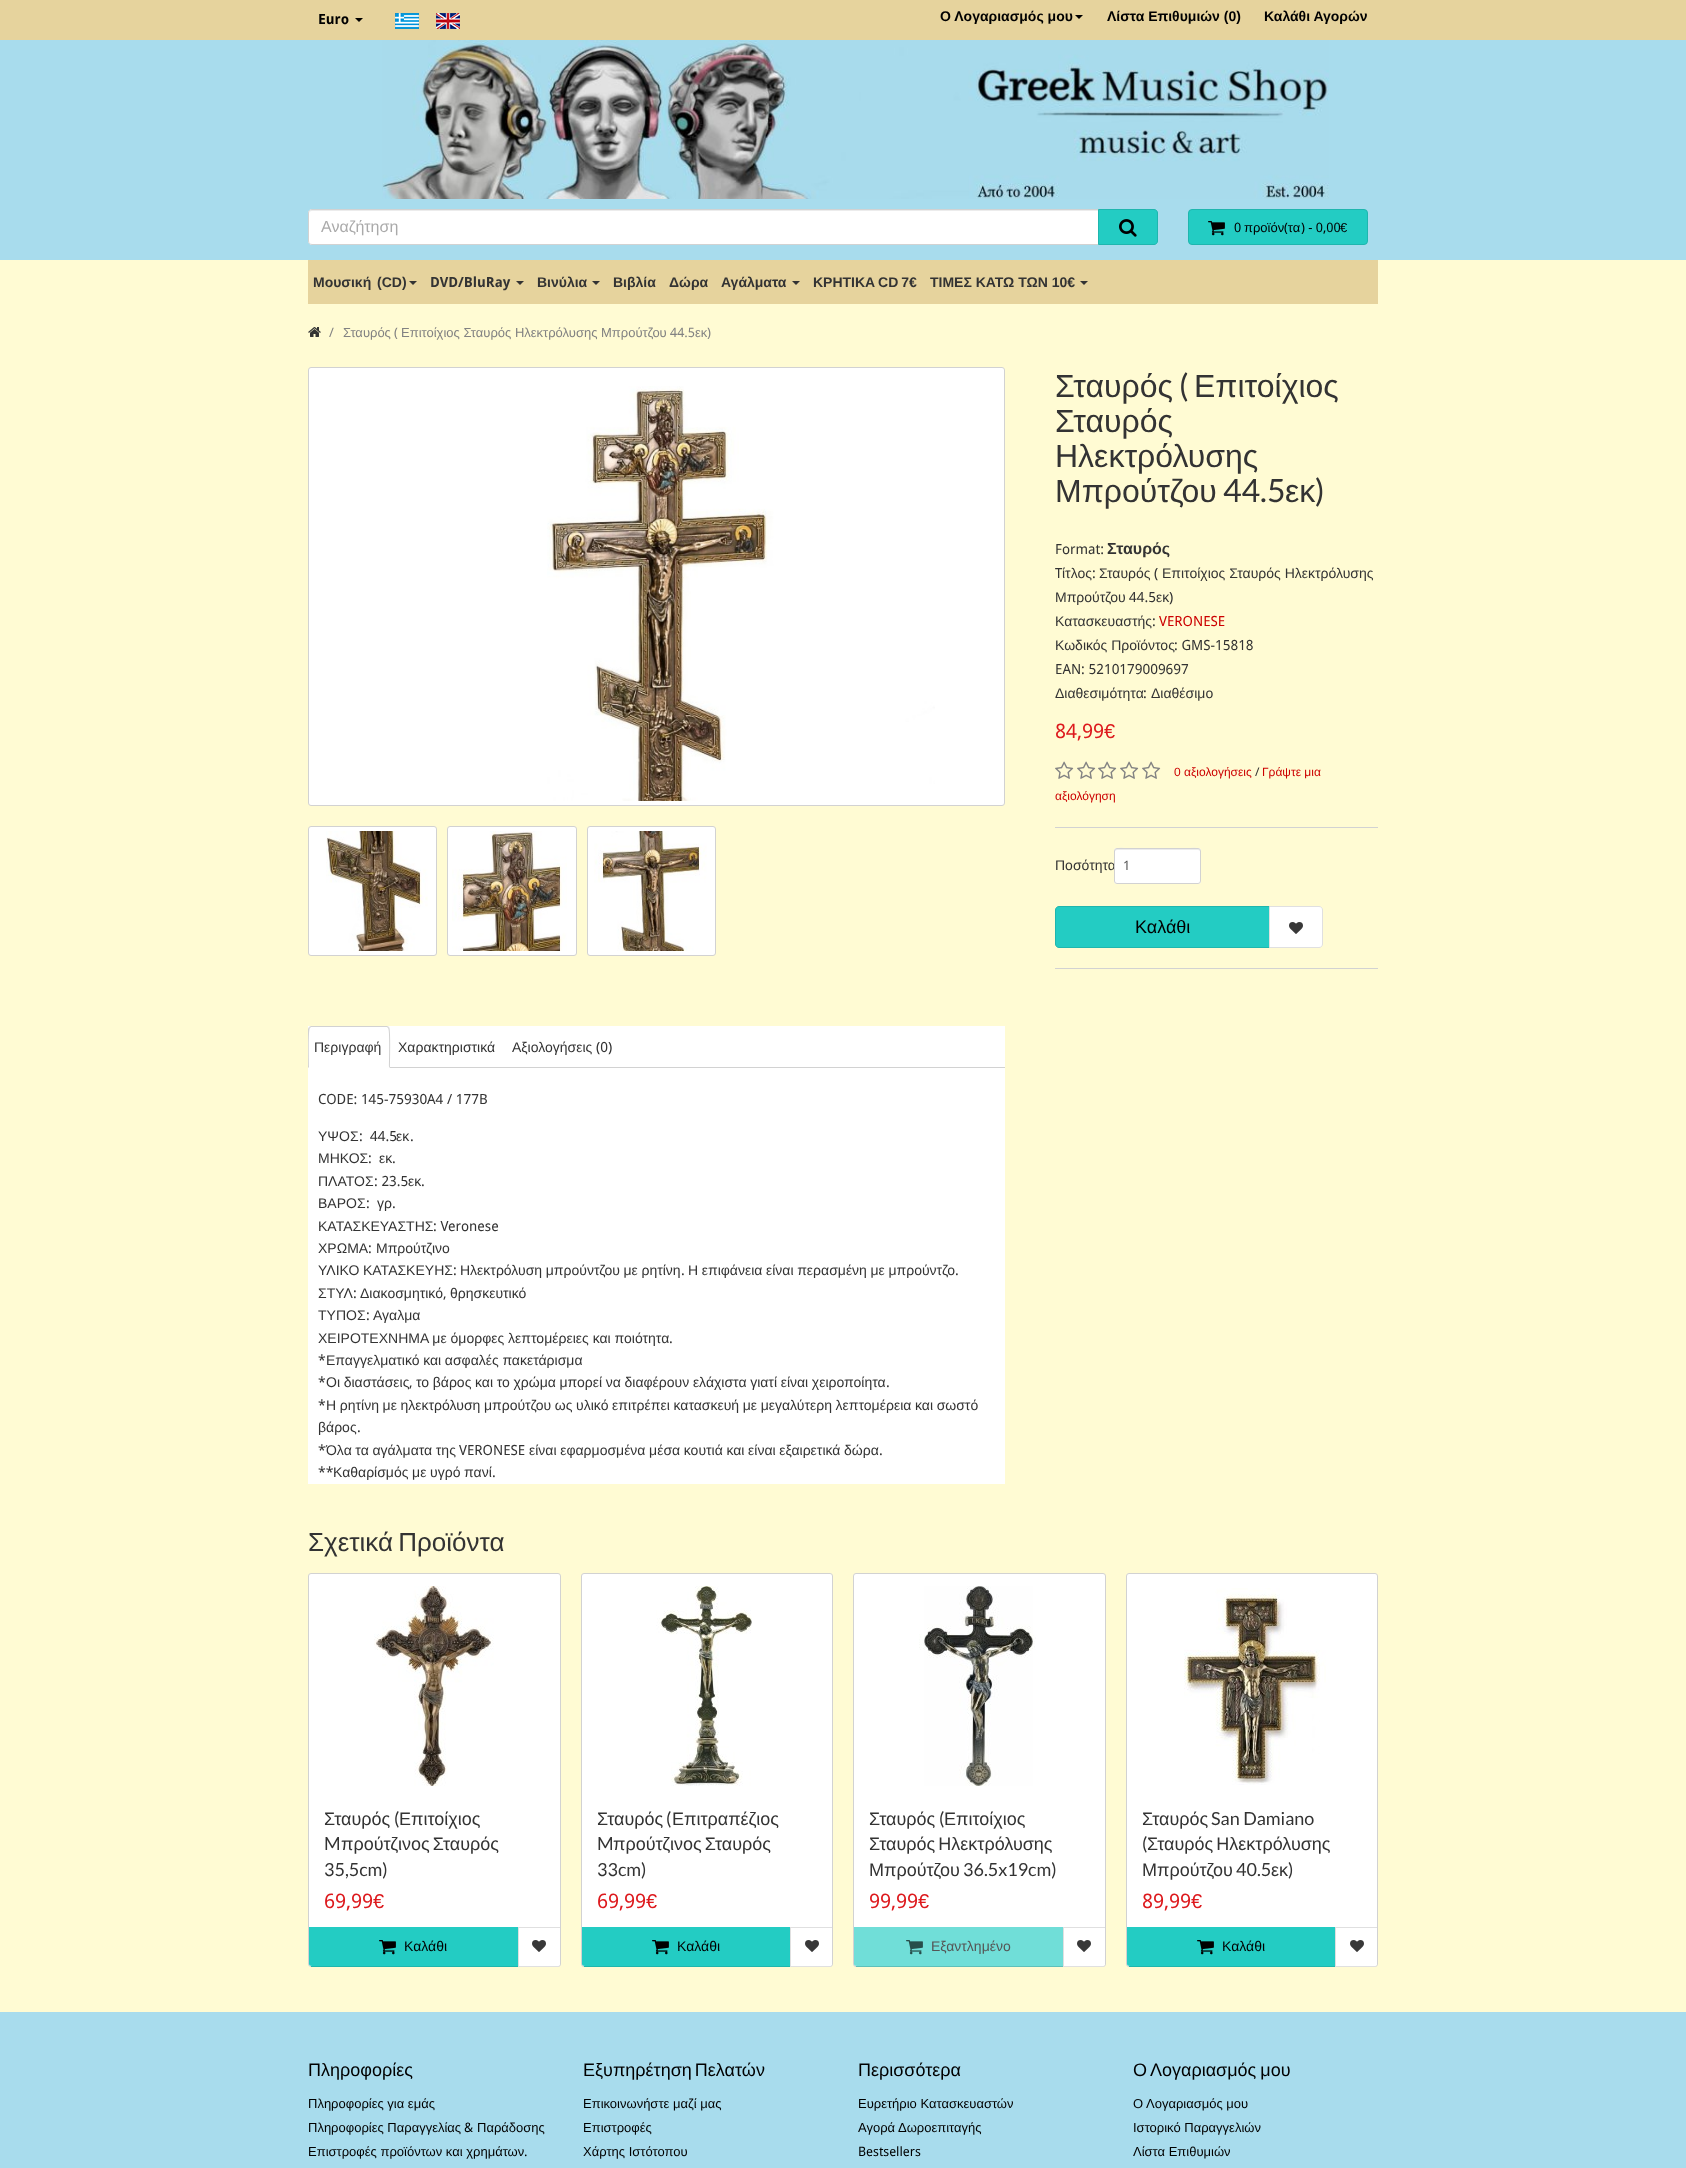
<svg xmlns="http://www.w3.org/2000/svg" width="1686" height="2168">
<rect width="100%" height="100%" fill="#fffbd3"/>
<rect width="1686" height="40" fill="#e6d39d"/>
<text x="318" y="24" style="font-family:Droid Sans;font-size:14px;font-weight:bold;fill:#000">Euro</text>
<path d="M355 18h8l-4 4z" fill="#000"/>
<image x="395" y="13" width="24" height="16" href="media/1.png"/>
<image x="436" y="13" width="24" height="16" href="media/2.png"/>
<text x="940" y="21" style="font-family:Liberation Sans;font-size:14px;font-weight:bold;fill:#000">Ο Λογαριασμός μου</text>
<path d="M1075 15h8l-4 4z" fill="#000"/>
<text x="1107" y="21" style="font-family:Liberation Sans;font-size:14px;font-weight:bold;fill:#000">Λίστα Επιθυμιών (0)</text>
<text x="1264" y="21" style="font-family:Liberation Sans;font-size:14px;font-weight:bold;fill:#000">Καλάθι Αγορών</text>
<rect y="40" width="1686" height="220" fill="#a8dced"/>
<image x="382" y="40" width="947" height="159" href="media/3.png"/>
<path d="M312 209h787v36h-787c-2 0-4-2-4-4v-28c0-2 2-4 4-4z" fill="#fff"/>
<path d="M312 211h786v-1h-786c-2 0-3 2-3 4c0-2 1-3 3-3z" fill="#ececec"/>
<path d="M312 209.5h786.5v35h-786.5c-2 0-3.5-1.5-3.5-3.5v-28c0-2 1.5-3.5 3.5-3.5z" fill="none" stroke="#d2d2d2"/>
<text x="321" y="232" style="font-family:Liberation Sans;font-size:16px;fill:#aaa">Αναζήτηση</text>
<path d="M1098.5 209.5h55.5c2 0 3.5 1.5 3.5 3.5v28c0 2-1.5 3.5-3.5 3.5h-55.5z" fill="#23ccc3" stroke="#1fb6ae"/>
<image x="1119" y="219" width="18" height="18" href="media/4.png"/>
<rect x="1188.5" y="209.5" width="179" height="35" rx="3.5" fill="#23ccc3" stroke="#1fb6ae"/>
<image x="1208" y="221" width="17" height="15" href="media/5.png"/>
<text x="1234" y="232" style="font-family:Droid Sans;font-size:13px;fill:#000">0</text>
<text x="1244" y="232" style="font-family:Liberation Sans;font-size:13px;fill:#000">προϊόν τα</text>
<text x="1284" y="232" style="font-family:Droid Sans;font-size:13px;fill:#000">(</text>
<text x="1301" y="232" style="font-family:Droid Sans;font-size:13px;fill:#000">) - 0,00</text>
<text x="1340" y="232" style="font-family:Liberation Sans;font-size:13px;fill:#000">€</text>
<rect x="308" y="260" width="1070" height="44" fill="#e6d39d"/>
<text x="313" y="287" word-spacing="2" style="font-family:Liberation Sans;font-size:14px;font-weight:bold;fill:#333">Μουσική (CD)</text>
<path d="M409 281h8l-4 4z" fill="#333"/>
<text x="430" y="287" style="font-family:Droid Sans;font-size:14px;font-weight:bold;fill:#333">DVD/BluRay</text>
<path d="M516 281h8l-4 4z" fill="#333"/>
<text x="537" y="287" style="font-family:Liberation Sans;font-size:14px;font-weight:bold;fill:#333">Βινύλια</text>
<path d="M592 281h8l-4 4z" fill="#333"/>
<text x="613" y="287" style="font-family:Liberation Sans;font-size:14px;font-weight:bold;fill:#333">Βιβλία</text>
<text x="669" y="287" style="font-family:Liberation Sans;font-size:14px;font-weight:bold;fill:#333">Δώρα</text>
<text x="721" y="287" style="font-family:Liberation Sans;font-size:14px;font-weight:bold;fill:#333">Αγάλματα</text>
<path d="M792 281h8l-4 4z" fill="#333"/>
<text x="813" y="287" word-spacing="-1" style="font-family:Liberation Sans;font-size:14px;font-weight:bold;fill:#333">ΚΡΗΤΙΚΑ CD 7€</text>
<text x="930" y="287" style="font-family:Liberation Sans;font-size:14px;font-weight:bold;fill:#333">ΤΙΜΕΣ ΚΑΤΩ ΤΩΝ 10€</text>
<path d="M1080 281h8l-4 4z" fill="#333"/>
<image x="308" y="327" width="13" height="10" href="media/6.png"/>
<text x="329" y="337" style="font-family:Droid Sans;font-size:13px;fill:#828282">/</text>
<text x="343" y="337" style="font-family:Liberation Sans;font-size:13px;fill:#828282">Σταυρός</text>
<text x="394" y="337" style="font-family:Droid Sans;font-size:13px;fill:#828282">(</text>
<text x="401" y="337" style="font-family:Liberation Sans;font-size:13px;fill:#828282">Επιτοίχιος Σταυρός Ηλεκτρόλυσης Μπρούτζου</text>
<text x="670" y="337" style="font-family:Droid Sans;font-size:13px;fill:#828282">44.5</text>
<text x="695" y="337" style="font-family:Liberation Sans;font-size:13px;fill:#828282">εκ</text>
<text x="707" y="337" style="font-family:Droid Sans;font-size:13px;fill:#828282">)</text>
<text x="1055" y="397" style="font-family:Liberation Sans;font-size:32px;fill:#333">Σταυρός</text>
<text x="1179" y="397" style="font-family:Lato;font-size:32px;fill:#333">(</text>
<text x="1194" y="397" style="font-family:Liberation Sans;font-size:32px;fill:#333">Επιτοίχιος</text>
<text x="1055" y="432" style="font-family:Liberation Sans;font-size:32px;fill:#333">Σταυρός</text>
<text x="1055" y="467" style="font-family:Liberation Sans;font-size:32px;fill:#333">Ηλεκτρόλυσης</text>
<text x="1055" y="502" style="font-family:Liberation Sans;font-size:32px;fill:#333">Μπρούτζου</text>
<text x="1223" y="502" style="font-family:Lato;font-size:32px;fill:#333">44.5</text>
<text x="1285" y="502" style="font-family:Liberation Sans;font-size:32px;fill:#333">εκ</text>
<text x="1315" y="502" style="font-family:Lato;font-size:32px;fill:#333">)</text>
<text x="1055" y="554" style="font-family:Droid Sans;font-size:14px;fill:#333">Format:</text>
<text x="1107" y="554" style="font-family:Liberation Sans;font-size:16px;font-weight:bold;fill:#333">Σταυρός</text>
<text x="1055" y="578" style="font-family:Droid Sans;font-size:14px;fill:#333">T</text>
<text x="1062" y="578" style="font-family:Liberation Sans;font-size:14px;fill:#333">ίτλος</text>
<text x="1092" y="578" style="font-family:Droid Sans;font-size:14px;fill:#333">:</text>
<text x="1099" y="578" style="font-family:Liberation Sans;font-size:14px;fill:#333">Σταυρός</text>
<text x="1154" y="578" style="font-family:Droid Sans;font-size:14px;fill:#333">(</text>
<text x="1162" y="578" style="font-family:Liberation Sans;font-size:14px;fill:#333">Επιτοίχιος Σταυρός Ηλεκτρόλυσης</text>
<text x="1055" y="602" style="font-family:Liberation Sans;font-size:14px;fill:#333">Μπρούτζου</text>
<text x="1129" y="602" style="font-family:Droid Sans;font-size:14px;fill:#333">44.5</text>
<text x="1156" y="602" style="font-family:Liberation Sans;font-size:14px;fill:#333">εκ</text>
<text x="1169" y="602" style="font-family:Droid Sans;font-size:14px;fill:#333">)</text>
<text x="1055" y="626" style="font-family:Liberation Sans;font-size:14px;fill:#333">Κατασκευαστής</text>
<text x="1152" y="626" style="font-family:Droid Sans;font-size:14px;fill:#333">:</text>
<text x="1159" y="626" style="font-family:Droid Sans;font-size:14px;fill:#c00">VERONESE</text>
<text x="1055" y="650" style="font-family:Liberation Sans;font-size:14px;fill:#333">Κωδικός Προϊόντος</text>
<text x="1174" y="650" style="font-family:Droid Sans;font-size:14px;fill:#333">: GMS-15818</text>
<text x="1055" y="674" style="font-family:Droid Sans;font-size:14px;fill:#333">EAN: 5210179009697</text>
<text x="1055" y="698" style="font-family:Liberation Sans;font-size:14px;fill:#333">Διαθεσιμότητα</text>
<text x="1143" y="698" style="font-family:Droid Sans;font-size:14px;fill:#333">:</text>
<text x="1151" y="698" style="font-family:Liberation Sans;font-size:14px;fill:#333">Διαθέσιμο</text>
<text x="1055" y="738" style="font-family:Droid Sans;font-size:20px;fill:#dd191d">84,99</text>
<text x="1104" y="738" style="font-family:Liberation Sans;font-size:20px;fill:#dd191d">€</text>
<image x="1055" y="761" width="19" height="18" href="media/7.png"/>
<image x="1077" y="761" width="19" height="18" href="media/7.png"/>
<image x="1098" y="761" width="19" height="18" href="media/7.png"/>
<image x="1120" y="761" width="19" height="18" href="media/7.png"/>
<image x="1142" y="761" width="19" height="18" href="media/7.png"/>
<text x="1174" y="776" style="font-family:Liberation Sans;font-size:12px;fill:#c00">0 αξιολογήσεις</text>
<text x="1255" y="776" style="font-family:Droid Sans;font-size:12px;fill:#333">/</text>
<text x="1262" y="776" style="font-family:Liberation Sans;font-size:12px;fill:#c00">Γράψτε μια</text>
<text x="1055" y="800" style="font-family:Liberation Sans;font-size:12px;fill:#c00">αξιολόγηση</text>
<rect x="1055" y="827" width="323" height="1" fill="#d2d2d2"/>
<text x="1055" y="870" style="font-family:Liberation Sans;font-size:14px;fill:#333">Ποσότητα</text>
<rect x="1114" y="848" width="87" height="36" rx="3" fill="#fff"/>
<path d="M1117 850h81c1 0 2 1 2 2c0-7-13-3-16-3h-54c-2 0-15-4-15 3c0-1 1-2 2-2z" fill="#ececec"/>
<rect x="1114.5" y="848.5" width="86" height="35" rx="2.5" fill="none" stroke="#d2d2d2"/>
<text x="1123" y="870" style="font-family:Droid Sans;font-size:13px;fill:#555">1</text>
<path d="M1059 906.5h210.5v41h-210.5c-2 0-3.5-1.5-3.5-3.5v-34c0-2 1.5-3.5 3.5-3.5z" fill="#23ccc3" stroke="#1fb6ae"/>
<text x="1135" y="933" style="font-family:Liberation Sans;font-size:18px;fill:#000">Καλάθι</text>
<path d="M1269.5 906.5h49.5c2 0 3.5 1.5 3.5 3.5v34c0 2-1.5 3.5-3.5 3.5h-49.5z" fill="#fff" stroke="#e0e0e0"/>
<image x="1289" y="922" width="14" height="12" href="media/8.png"/>
<rect x="1055" y="968" width="323" height="1" fill="#d2d2d2"/>
<rect x="308.5" y="367.5" width="696" height="438" rx="2.5" fill="#fff" stroke="#d2d2d2"/>
<image x="547" y="386" width="388" height="415" href="media/9.png"/>
<rect x="308.5" y="826.5" width="128" height="129" rx="2.5" fill="#fff" stroke="#d2d2d2"/>
<image x="326" y="831" width="102" height="120" href="media/10.png"/>
<rect x="447.5" y="826.5" width="129" height="129" rx="2.5" fill="#fff" stroke="#d2d2d2"/>
<image x="452" y="831" width="115" height="120" href="media/11.png"/>
<rect x="587.5" y="826.5" width="128" height="129" rx="2.5" fill="#fff" stroke="#d2d2d2"/>
<image x="594" y="831" width="113" height="120" href="media/12.png"/>
<rect x="308" y="1026" width="697" height="458" fill="#fff"/>
<rect x="390" y="1067" width="615" height="1" fill="#d2d2d2"/>
<path d="M311 1026l-2 1l1 1l1-1h76l1 1l1-1l-2-1z" fill="#d2d2d2"/>
<path d="M390 1068c0-5 1-39-1-41l-1 1c2 1 1 34 1 39z" fill="#d2d2d2"/>
<path d="M308 1068l1-1c0-5-1-38 1-39l-1-1l-1 2z" fill="#d2d2d2"/>
<text x="314" y="1052" style="font-family:Liberation Sans;font-size:14px;fill:#333">Περιγραφή</text>
<text x="398" y="1052" style="font-family:Liberation Sans;font-size:14px;fill:#333">Χαρακτηριστικά</text>
<text x="512" y="1052" style="font-family:Liberation Sans;font-size:14px;fill:#333">Αξιολογήσεις</text>
<text x="596" y="1052" style="font-family:Droid Sans;font-size:14px;fill:#333">(0)</text>
<text x="318" y="1104" style="font-family:Droid Sans;font-size:14px;fill:#333">CODE: 145-75930A4 / 177B</text>
<text x="318" y="1141" style="font-family:Liberation Sans;font-size:14px;fill:#333">ΥΨΟΣ</text>
<text x="359" y="1141" style="font-family:Droid Sans;font-size:14px;fill:#333" xml:space="preserve">:  44.5</text>
<text x="396" y="1141" style="font-family:Liberation Sans;font-size:14px;fill:#333">εκ</text>
<text x="410" y="1141" style="font-family:Droid Sans;font-size:14px;fill:#333">.</text>
<text x="318" y="1163" style="font-family:Liberation Sans;font-size:14px;fill:#333">ΜΗΚΟΣ</text>
<text x="368" y="1163" style="font-family:Droid Sans;font-size:14px;fill:#333">:</text>
<text x="379" y="1163" style="font-family:Liberation Sans;font-size:14px;fill:#333">εκ</text>
<text x="392" y="1163" style="font-family:Droid Sans;font-size:14px;fill:#333">.</text>
<text x="318" y="1186" style="font-family:Liberation Sans;font-size:14px;fill:#333">ΠΛΑΤΟΣ</text>
<text x="374" y="1186" style="font-family:Droid Sans;font-size:14px;fill:#333">: 23.5</text>
<text x="408" y="1186" style="font-family:Liberation Sans;font-size:14px;fill:#333">εκ</text>
<text x="421" y="1186" style="font-family:Droid Sans;font-size:14px;fill:#333">.</text>
<text x="318" y="1208" style="font-family:Liberation Sans;font-size:14px;fill:#333">ΒΑΡΟΣ</text>
<text x="366" y="1208" style="font-family:Droid Sans;font-size:14px;fill:#333">:</text>
<text x="377" y="1208" style="font-family:Liberation Sans;font-size:14px;fill:#333">γρ</text>
<text x="392" y="1208" style="font-family:Droid Sans;font-size:14px;fill:#333">.</text>
<text x="318" y="1231" style="font-family:Liberation Sans;font-size:14px;fill:#333">ΚΑΤΑΣΚΕΥΑΣΤΗΣ</text>
<text x="433" y="1231" style="font-family:Droid Sans;font-size:14px;fill:#333">: Veronese</text>
<text x="318" y="1253" style="font-family:Liberation Sans;font-size:14px;fill:#333">ΧΡΩΜΑ</text>
<text x="368" y="1253" style="font-family:Droid Sans;font-size:14px;fill:#333">:</text>
<text x="376" y="1253" style="font-family:Liberation Sans;font-size:14px;fill:#333">Μπρούτζινο</text>
<text x="318" y="1275" word-spacing="-0.25" style="font-family:Liberation Sans;font-size:14px;fill:#333">ΥΛΙΚΟ ΚΑΤΑΣΚΕΥΗΣ</text>
<text x="453" y="1275" style="font-family:Droid Sans;font-size:14px;fill:#333">:</text>
<text x="460" y="1275" word-spacing="-0.25" style="font-family:Liberation Sans;font-size:14px;fill:#333">Ηλεκτρόλυση μπρούντζου με ρητίνη</text>
<text x="681" y="1275" style="font-family:Droid Sans;font-size:14px;fill:#333">.</text>
<text x="688" y="1275" word-spacing="-0.25" style="font-family:Liberation Sans;font-size:14px;fill:#333">Η επιφάνεια είναι περασμένη με μπρούντζο</text>
<text x="955" y="1275" style="font-family:Droid Sans;font-size:14px;fill:#333">.</text>
<text x="318" y="1298" style="font-family:Liberation Sans;font-size:14px;fill:#333">ΣΤΥΛ</text>
<text x="353" y="1298" style="font-family:Droid Sans;font-size:14px;fill:#333">:</text>
<text x="360" y="1298" style="font-family:Liberation Sans;font-size:14px;fill:#333">Διακοσμητικό</text>
<text x="443" y="1298" style="font-family:Droid Sans;font-size:14px;fill:#333">,</text>
<text x="450" y="1298" style="font-family:Liberation Sans;font-size:14px;fill:#333">θρησκευτικό</text>
<text x="318" y="1320" style="font-family:Liberation Sans;font-size:14px;fill:#333">ΤΥΠΟΣ</text>
<text x="366" y="1320" style="font-family:Droid Sans;font-size:14px;fill:#333">:</text>
<text x="373" y="1320" style="font-family:Liberation Sans;font-size:14px;fill:#333">Αγαλμα</text>
<text x="318" y="1343" style="font-family:Liberation Sans;font-size:14px;fill:#333">ΧΕΙΡΟΤΕΧΝΗΜΑ με όμορφες λεπτομέρειες και ποιότητα</text>
<text x="669" y="1343" style="font-family:Droid Sans;font-size:14px;fill:#333">.</text>
<text x="318" y="1365" style="font-family:Droid Sans;font-size:14px;fill:#333">*</text>
<text x="326" y="1365" word-spacing="-0.25" style="font-family:Liberation Sans;font-size:14px;fill:#333">Επαγγελματικό και ασφαλές πακετάρισμα</text>
<text x="318" y="1387" style="font-family:Droid Sans;font-size:14px;fill:#333">*</text>
<text x="326" y="1387" word-spacing="-0.25" style="font-family:Liberation Sans;font-size:14px;fill:#333">Οι διαστάσεις</text>
<text x="409" y="1387" style="font-family:Droid Sans;font-size:14px;fill:#333">,</text>
<text x="416" y="1387" word-spacing="-0.25" style="font-family:Liberation Sans;font-size:14px;fill:#333">το βάρος και το χρώμα μπορεί να διαφέρουν ελάχιστα γιατί είναι χειροποίητα</text>
<text x="886" y="1387" style="font-family:Droid Sans;font-size:14px;fill:#333">.</text>
<text x="318" y="1410" style="font-family:Droid Sans;font-size:14px;fill:#333">*</text>
<text x="326" y="1410" word-spacing="-0.25" style="font-family:Liberation Sans;font-size:14px;fill:#333">Η ρητίνη με ηλεκτρόλυση μπρούτζου ως υλικό επιτρέπει κατασκευή με μεγαλύτερη λεπτομέρεια και σωστό</text>
<text x="318" y="1432" style="font-family:Liberation Sans;font-size:14px;fill:#333">βάρος</text>
<text x="357" y="1432" style="font-family:Droid Sans;font-size:14px;fill:#333">.</text>
<text x="318" y="1455" style="font-family:Droid Sans;font-size:14px;fill:#333">*</text>
<text x="326" y="1455" word-spacing="-0.25" style="font-family:Liberation Sans;font-size:14px;fill:#333">Όλα τα αγάλματα της</text>
<text x="459" y="1455" style="font-family:Droid Sans;font-size:14px;fill:#333">VERONESE</text>
<text x="529" y="1455" word-spacing="-0.25" style="font-family:Liberation Sans;font-size:14px;fill:#333">είναι εφαρμοσμένα μέσα κουτιά και είναι εξαιρετικά δώρα</text>
<text x="879" y="1455" style="font-family:Droid Sans;font-size:14px;fill:#333">.</text>
<text x="318" y="1477" style="font-family:Droid Sans;font-size:14px;fill:#333">**</text>
<text x="333" y="1477" word-spacing="-0.25" style="font-family:Liberation Sans;font-size:14px;fill:#333">Καθαρίσμός με υγρό πανί</text>
<text x="492" y="1477" style="font-family:Droid Sans;font-size:14px;fill:#333">.</text>
<text x="308" y="1551" word-spacing="-2" style="font-family:Liberation Sans;font-size:26px;fill:#333">Σχετικά Προϊόντα</text>
<rect x="308.5" y="1573.5" width="252" height="393" rx="2.5" fill="#fff" stroke="#d2d2d2"/>
<image x="374" y="1586" width="120" height="200" href="media/13.png"/>
<text x="324" y="1825" style="font-family:Liberation Sans;font-size:18px;fill:#333">Σταυρός</text>
<text x="394" y="1825" style="font-family:Lato;font-size:18px;fill:#333">(</text>
<text x="399" y="1825" style="font-family:Liberation Sans;font-size:18px;fill:#333">Επιτοίχιος</text>
<text x="324" y="1850" style="font-family:Lato;font-size:18px;fill:#333">M</text>
<text x="341" y="1850" word-spacing="-2" style="font-family:Liberation Sans;font-size:18px;fill:#333">προύτζινος Σταυρός</text>
<text x="324" y="1876" style="font-family:Lato;font-size:18px;fill:#333">35,5cm)</text>
<text x="324" y="1908" style="font-family:Droid Sans;font-size:20px;fill:#dd191d">69,99</text>
<text x="373" y="1908" style="font-family:Liberation Sans;font-size:20px;fill:#dd191d">€</text>
<path d="M309 1927h209v39h-206c-2 0-3-1-3-2z" fill="#23ccc3"/>
<rect x="311" y="1966" width="207" height="1" fill="#1fb6ae"/>
<image x="379" y="1940" width="17" height="15" href="media/5.png"/>
<text x="404" y="1951" style="font-family:Liberation Sans;font-size:14px;fill:#000">Καλάθι</text>
<path d="M519 1928h41v36c0 1-1 2-3 2h-38z" fill="#fff"/>
<rect x="518" y="1927" width="42" height="1" fill="#e0e0e0"/>
<rect x="518" y="1966" width="41" height="1" fill="#e0e0e0"/>
<rect x="518" y="1927" width="1" height="40" fill="#e0e0e0"/>
<image x="532" y="1940" width="14" height="12" href="media/8.png"/>
<rect x="581.5" y="1573.5" width="251" height="393" rx="2.5" fill="#fff" stroke="#d2d2d2"/>
<image x="656" y="1586" width="96" height="200" href="media/14.png"/>
<text x="597" y="1825" style="font-family:Liberation Sans;font-size:18px;fill:#333">Σταυρός</text>
<text x="666" y="1825" style="font-family:Lato;font-size:18px;fill:#333">(</text>
<text x="672" y="1825" style="font-family:Liberation Sans;font-size:18px;fill:#333">Επιτραπέζιος</text>
<text x="597" y="1850" style="font-family:Lato;font-size:18px;fill:#333">M</text>
<text x="613" y="1850" word-spacing="-2" style="font-family:Liberation Sans;font-size:18px;fill:#333">προύτζινος Σταυρός</text>
<text x="597" y="1876" style="font-family:Lato;font-size:18px;fill:#333">33cm)</text>
<text x="597" y="1908" style="font-family:Droid Sans;font-size:20px;fill:#dd191d">69,99</text>
<text x="646" y="1908" style="font-family:Liberation Sans;font-size:20px;fill:#dd191d">€</text>
<path d="M582 1927h208v39h-205c-2 0-3-1-3-2z" fill="#23ccc3"/>
<rect x="584" y="1966" width="206" height="1" fill="#1fb6ae"/>
<image x="652" y="1940" width="17" height="15" href="media/5.png"/>
<text x="677" y="1951" style="font-family:Liberation Sans;font-size:14px;fill:#000">Καλάθι</text>
<path d="M791 1928h41v36c0 1-1 2-3 2h-38z" fill="#fff"/>
<rect x="790" y="1927" width="42" height="1" fill="#e0e0e0"/>
<rect x="790" y="1966" width="41" height="1" fill="#e0e0e0"/>
<rect x="790" y="1927" width="1" height="40" fill="#e0e0e0"/>
<image x="805" y="1940" width="14" height="12" href="media/8.png"/>
<rect x="853.5" y="1573.5" width="252" height="393" rx="2.5" fill="#fff" stroke="#d2d2d2"/>
<image x="919" y="1586" width="117" height="200" href="media/15.png"/>
<text x="869" y="1825" style="font-family:Liberation Sans;font-size:18px;fill:#333">Σταυρός</text>
<text x="939" y="1825" style="font-family:Lato;font-size:18px;fill:#333">(</text>
<text x="944" y="1825" style="font-family:Liberation Sans;font-size:18px;fill:#333">Επιτοίχιος</text>
<text x="869" y="1850" word-spacing="-2" style="font-family:Liberation Sans;font-size:18px;fill:#333">Σταυρός Ηλεκτρόλυσης</text>
<text x="869" y="1876" style="font-family:Liberation Sans;font-size:18px;fill:#333">Μπρούτζου</text>
<text x="963" y="1876" style="font-family:Lato;font-size:18px;fill:#333">36.5x19cm)</text>
<text x="869" y="1908" style="font-family:Droid Sans;font-size:20px;fill:#dd191d">99,99</text>
<text x="918" y="1908" style="font-family:Liberation Sans;font-size:20px;fill:#dd191d">€</text>
<path d="M854 1927h209v39h-206c-2 0-3-1-3-2z" fill="#23ccc3a6"/>
<rect x="856" y="1966" width="207" height="1" fill="#5ec0bb"/>
<image x="906" y="1940" width="17" height="15" href="media/16.png"/>
<text x="931" y="1951" style="font-family:Liberation Sans;font-size:14px;fill:#555">Εξαντλημένο</text>
<path d="M1064 1928h41v36c0 1-1 2-3 2h-38z" fill="#fff"/>
<rect x="1063" y="1927" width="42" height="1" fill="#e0e0e0"/>
<rect x="1063" y="1966" width="41" height="1" fill="#e0e0e0"/>
<rect x="1063" y="1927" width="1" height="40" fill="#e0e0e0"/>
<image x="1077" y="1940" width="14" height="12" href="media/8.png"/>
<rect x="1126.5" y="1573.5" width="251" height="393" rx="2.5" fill="#fff" stroke="#d2d2d2"/>
<image x="1184" y="1588" width="142" height="197" href="media/17.png"/>
<text x="1142" y="1825" style="font-family:Liberation Sans;font-size:18px;fill:#333">Σταυρός</text>
<text x="1211" y="1825" style="font-family:Lato;font-size:18px;fill:#333">San Damiano</text>
<text x="1142" y="1850" style="font-family:Lato;font-size:18px;fill:#333">(</text>
<text x="1147" y="1850" word-spacing="-2" style="font-family:Liberation Sans;font-size:18px;fill:#333">Σταυρός Ηλεκτρόλυσης</text>
<text x="1142" y="1876" style="font-family:Liberation Sans;font-size:18px;fill:#333">Μπρούτζου</text>
<text x="1236" y="1876" style="font-family:Lato;font-size:18px;fill:#333">40.5</text>
<text x="1271" y="1876" style="font-family:Liberation Sans;font-size:18px;fill:#333">εκ</text>
<text x="1288" y="1876" style="font-family:Lato;font-size:18px;fill:#333">)</text>
<text x="1142" y="1908" style="font-family:Droid Sans;font-size:20px;fill:#dd191d">89,99</text>
<text x="1191" y="1908" style="font-family:Liberation Sans;font-size:20px;fill:#dd191d">€</text>
<path d="M1127 1927h208v39h-205c-2 0-3-1-3-2z" fill="#23ccc3"/>
<rect x="1129" y="1966" width="206" height="1" fill="#1fb6ae"/>
<image x="1197" y="1940" width="17" height="15" href="media/5.png"/>
<text x="1222" y="1951" style="font-family:Liberation Sans;font-size:14px;fill:#000">Καλάθι</text>
<path d="M1336 1928h41v36c0 1-1 2-3 2h-38z" fill="#fff"/>
<rect x="1335" y="1927" width="42" height="1" fill="#e0e0e0"/>
<rect x="1335" y="1966" width="41" height="1" fill="#e0e0e0"/>
<rect x="1335" y="1927" width="1" height="40" fill="#e0e0e0"/>
<image x="1350" y="1940" width="14" height="12" href="media/8.png"/>
<rect y="2012" width="1686" height="156" fill="#a8dced"/>
<text x="308" y="2076" style="font-family:Liberation Sans;font-size:18px;fill:#000">Πληροφορίες</text>
<text x="308" y="2108" style="font-family:Liberation Sans;font-size:13px;fill:#000">Πληροφορίες για εμάς</text>
<text x="308" y="2132" style="font-family:Liberation Sans;font-size:13px;fill:#000">Πληροφορίες Παραγγελίας</text>
<text x="464" y="2132" style="font-family:Droid Sans;font-size:13px;fill:#000">&amp;</text>
<text x="477" y="2132" style="font-family:Liberation Sans;font-size:13px;fill:#000">Παράδοσης</text>
<text x="308" y="2156" style="font-family:Liberation Sans;font-size:13px;fill:#000">Επιστροφές προϊόντων και χρημάτων</text>
<text x="524" y="2156" style="font-family:Droid Sans;font-size:13px;fill:#000">.</text>
<text x="583" y="2076" word-spacing="-2" style="font-family:Liberation Sans;font-size:18px;fill:#000">Εξυπηρέτηση Πελατών</text>
<text x="583" y="2108" style="font-family:Liberation Sans;font-size:13px;fill:#000">Επικοινωνήστε μαζί μας</text>
<text x="583" y="2132" style="font-family:Liberation Sans;font-size:13px;fill:#000">Επιστροφές</text>
<text x="583" y="2156" style="font-family:Liberation Sans;font-size:13px;fill:#000">Χάρτης Ιστότοπου</text>
<text x="858" y="2076" style="font-family:Liberation Sans;font-size:18px;fill:#000">Περισσότερα</text>
<text x="858" y="2108" style="font-family:Liberation Sans;font-size:13px;fill:#000">Ευρετήριο Κατασκευαστών</text>
<text x="858" y="2132" style="font-family:Liberation Sans;font-size:13px;fill:#000">Αγορά Δωροεπιταγής</text>
<text x="858" y="2156" style="font-family:Droid Sans;font-size:13px;fill:#000">Bestsellers</text>
<text x="1133" y="2076" word-spacing="-1" style="font-family:Liberation Sans;font-size:18px;fill:#000">Ο Λογαριασμός μου</text>
<text x="1133" y="2108" style="font-family:Liberation Sans;font-size:13px;fill:#000">Ο Λογαριασμός μου</text>
<text x="1133" y="2132" style="font-family:Liberation Sans;font-size:13px;fill:#000">Ιστορικό Παραγγελιών</text>
<text x="1133" y="2156" style="font-family:Liberation Sans;font-size:13px;fill:#000">Λίστα Επιθυμιών</text>
</svg>
